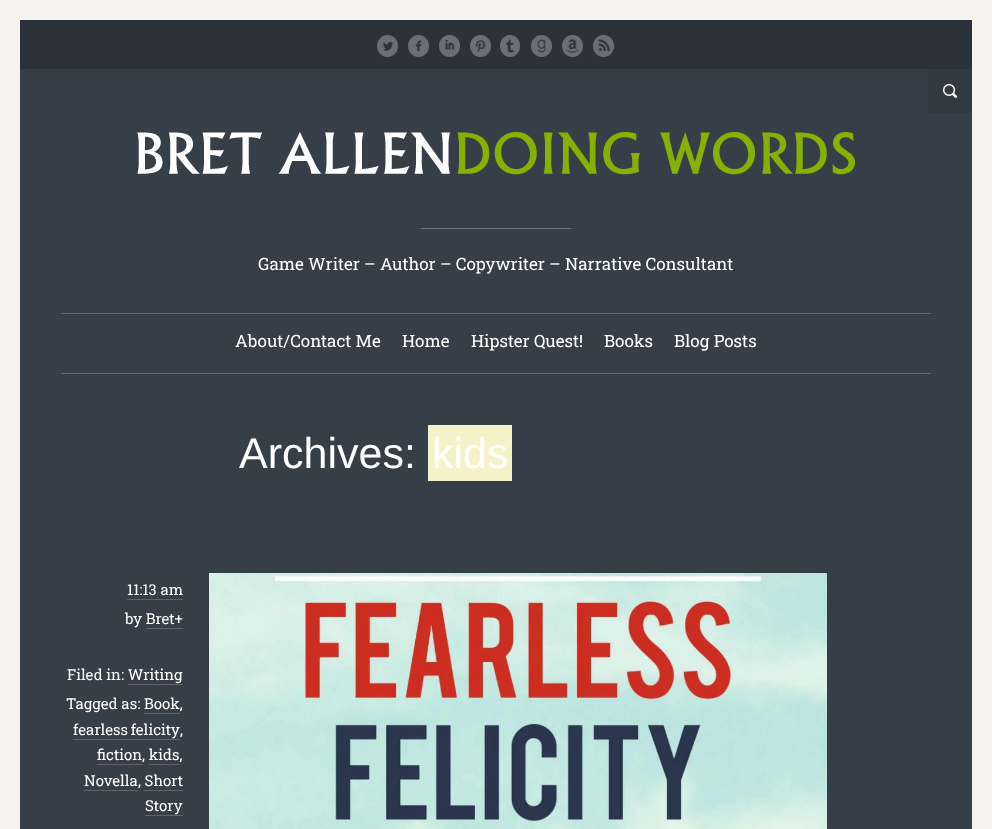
<svg xmlns="http://www.w3.org/2000/svg" width="992" height="829">
<rect width="100%" height="100%" fill="#363f48"/>
<rect x="10" y="10" width="972" height="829" fill="none" stroke="#f5f4f0" stroke-width="20"/>
<rect x="20" y="20" width="952" height="49" fill="#2b323a"/>
<image x="377" y="35" width="21" height="22" href="media/1.png"/>
<image x="408" y="35" width="21" height="22" href="media/2.png"/>
<image x="439" y="35" width="21" height="22" href="media/3.png"/>
<image x="470" y="35" width="21" height="22" href="media/4.png"/>
<image x="500" y="35" width="20" height="22" href="media/5.png"/>
<image x="531" y="35" width="21" height="22" href="media/6.png"/>
<image x="562" y="35" width="21" height="22" href="media/7.png"/>
<image x="593" y="35" width="21" height="22" href="media/8.png"/>
<rect x="928" y="69" width="44" height="44" fill="#313941"/>
<image x="943" y="84" width="15" height="14" href="media/9.png"/>
<image x="137" y="132" width="718" height="43" href="media/10.png"/>
<rect x="421" y="228" width="150" height="1" fill="#72797f"/>
<text x="258" y="270" style="font-family:Roboto Slab;font-size:17px;fill:#fff">Game Writer – Author – Copywriter – Narrative Consultant</text>
<rect x="61" y="313" width="870" height="1" fill="#626970"/>
<rect x="61" y="373" width="870" height="1" fill="#626970"/>
<text x="235" y="347" style="font-family:Roboto Slab;font-size:17px;fill:#fff">About/Contact Me</text>
<text x="402" y="347" style="font-family:Roboto Slab;font-size:17px;fill:#fff">Home</text>
<text x="471" y="347" style="font-family:Roboto Slab;font-size:17px;fill:#fff">Hipster Quest!</text>
<text x="604" y="347" style="font-family:Roboto Slab;font-size:17px;fill:#fff">Books</text>
<text x="674" y="347" style="font-family:Roboto Slab;font-size:17px;fill:#fff">Blog Posts</text>
<text x="239" y="468" style="font-family:Liberation Sans;font-size:43px;fill:#fff">Archives:</text>
<rect x="428" y="425" width="84" height="56" fill="#f5f2c9"/>
<text x="432" y="468" style="font-family:Liberation Sans;font-size:43px;fill:#fff">kids</text>
<text x="127" y="595" style="font-family:Roboto Slab;font-size:15px;fill:#fff">11:13 am</text>
<rect x="127" y="599" width="56" height="1" fill="#5e656d"/>
<text x="125" y="624" style="font-family:Roboto Slab;font-size:15px;fill:#fff">by Bret+</text>
<rect x="146" y="628" width="37" height="1" fill="#5e656d"/>
<text x="67" y="680" style="font-family:Roboto Slab;font-size:15px;fill:#fff">Filed in: Writing</text>
<rect x="128" y="684" width="55" height="1" fill="#5e656d"/>
<text x="66" y="709" style="font-family:Roboto Slab;font-size:15px;fill:#fff">Tagged as: Book,</text>
<rect x="144" y="713" width="36" height="1" fill="#5e656d"/>
<text x="73" y="735" word-spacing="-1" style="font-family:Roboto Slab;font-size:15px;fill:#fff">fearless felicity</text>
<rect x="73" y="739" width="107" height="1" fill="#5e656d"/>
<text x="180" y="735" style="font-family:Roboto Slab;font-size:15px;fill:#fff">,</text>
<text x="97" y="760" style="font-family:Roboto Slab;font-size:15px;fill:#fff">fiction, kids,</text>
<rect x="97" y="764" width="46" height="1" fill="#5e656d"/>
<rect x="149" y="764" width="31" height="1" fill="#5e656d"/>
<text x="84" y="786" style="font-family:Roboto Slab;font-size:15px;fill:#fff">Novella, Short</text>
<rect x="84" y="790" width="54" height="1" fill="#5e656d"/>
<text x="145" y="811" style="font-family:Roboto Slab;font-size:15px;fill:#fff">Story</text>
<rect x="144" y="790" width="39" height="1" fill="#5e656d"/>
<rect x="145" y="815" width="38" height="1" fill="#5e656d"/>
<image x="209" y="573" width="618" height="256" href="media/11.png"/>
</svg>
